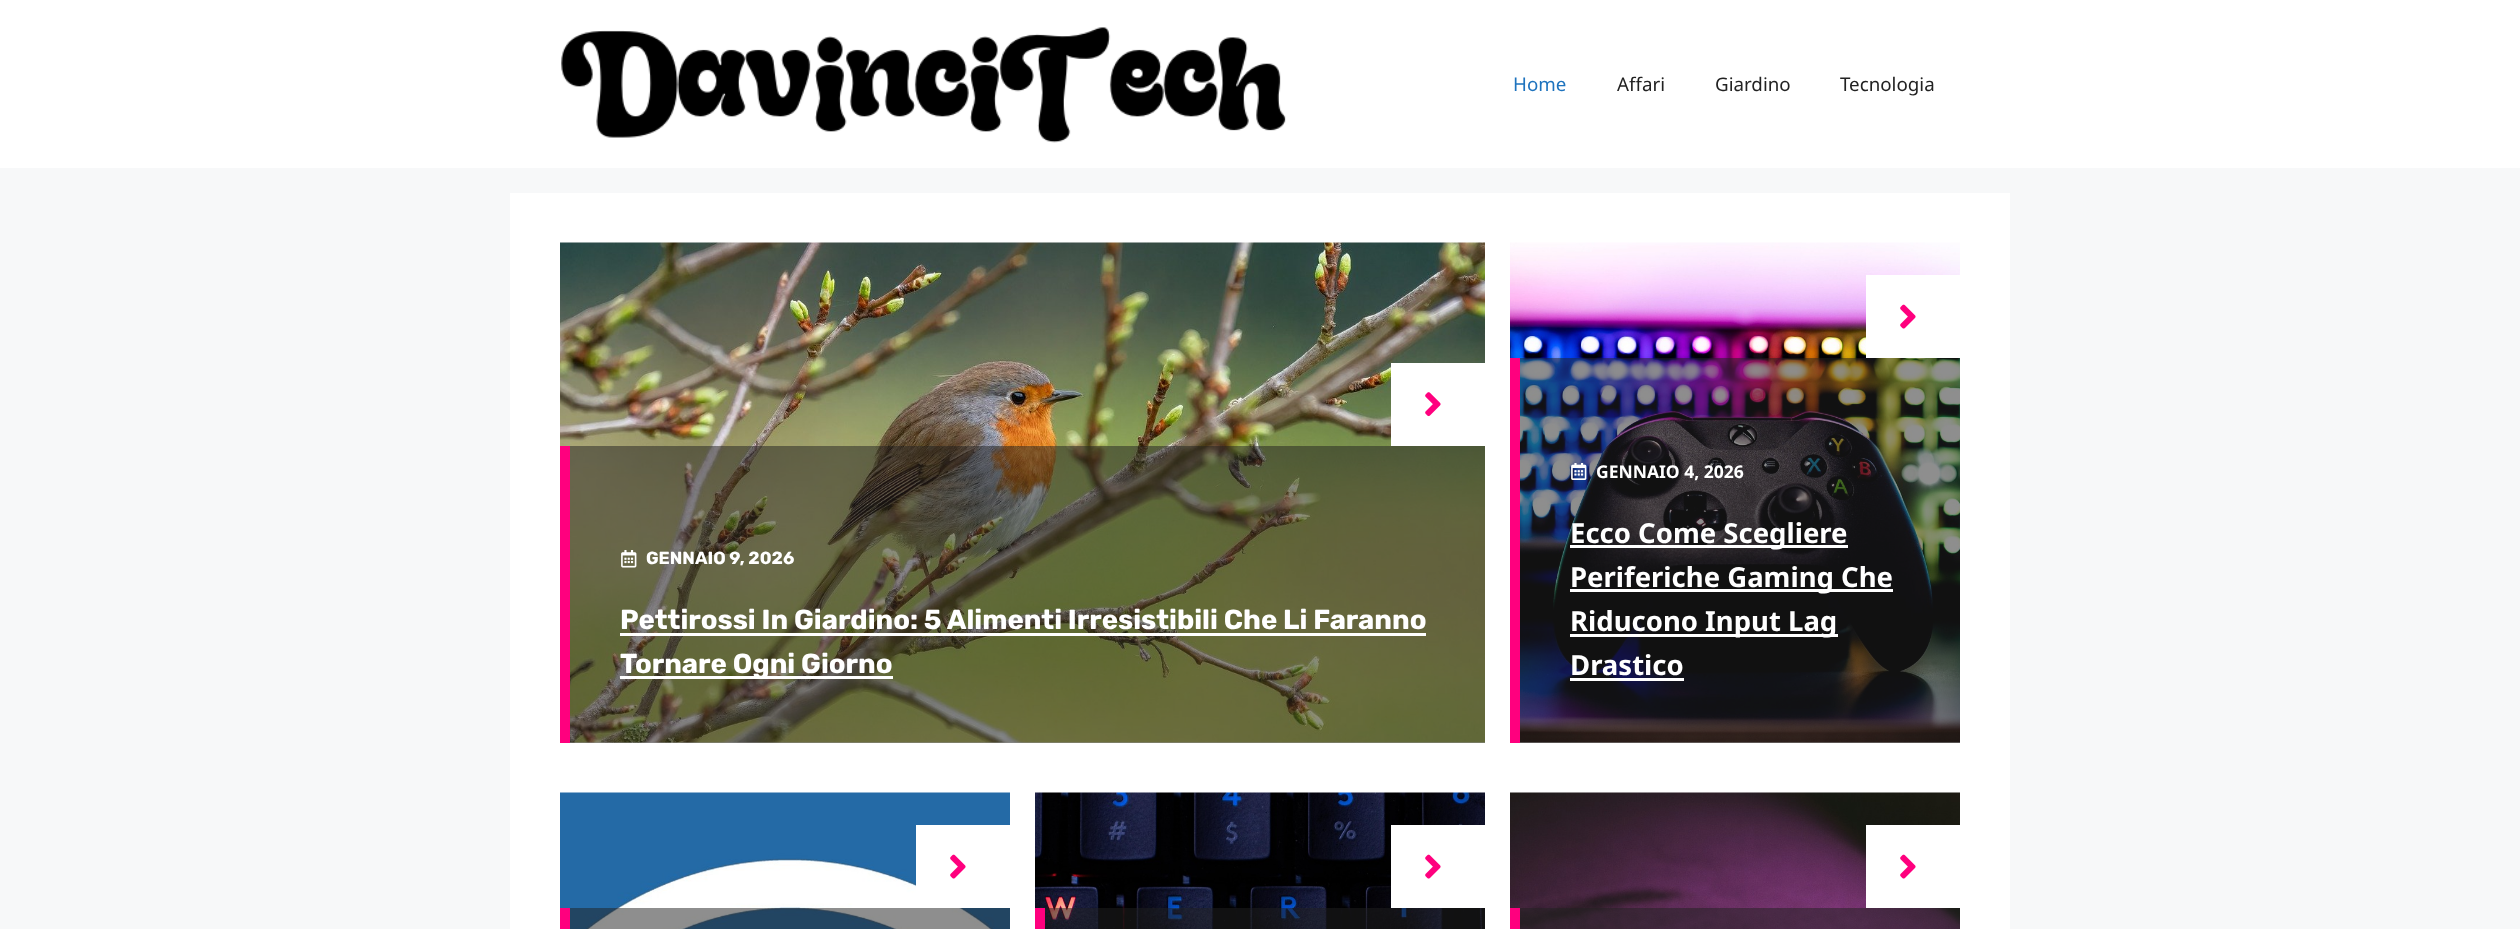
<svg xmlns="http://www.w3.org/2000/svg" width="2520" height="929">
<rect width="100%" height="100%" fill="#f7f8f9"/>
<rect width="2520" height="168" fill="#fff"/>
<image x="561" y="27" width="725" height="116" href="media/1.png"/>
<text x="1513" y="91" style="font-family:Noto Sans;font-size:18.75px;fill:#1e73be">Home</text>
<text x="1617" y="91" style="font-family:Noto Sans;font-size:18.75px;fill:#222">Affari</text>
<text x="1715" y="91" style="font-family:Noto Sans;font-size:18.75px;fill:#222">Giardino</text>
<text x="1840" y="91" style="font-family:Noto Sans;font-size:18.75px;fill:#222">Tecnologia</text>
<rect x="510" y="193" width="1500" height="736" fill="#fff"/>
<image x="560" y="242" width="925" height="501" href="media/2.png"/>
<rect x="1391" y="363" width="94" height="83" fill="#fff"/>
<image x="1425" y="392" width="16" height="25" href="media/3.png"/>
<rect x="570" y="446" width="915" height="297" fill="#21212182"/>
<rect x="560" y="446" width="10" height="297" fill="#ff007e"/>
<image x="621" y="550" width="16" height="18" href="media/4.png"/>
<text x="646" y="564" style="font-family:Rubik;font-size:17.5px;font-weight:bold;fill:#fff">GENNAIO 9, 2026</text>
<text x="620" y="629" style="font-family:Rubik;font-size:27.5px;font-weight:bold;fill:#fff">Pettirossi In Giardino: 5 Alimenti Irresistibili Che Li Faranno</text>
<rect x="620" y="633" width="806" height="3" fill="#fff"/>
<rect x="620" y="676" width="273" height="3" fill="#fff"/>
<text x="620" y="673" style="font-family:Rubik;font-size:27.5px;font-weight:bold;fill:#fff">Tornare Ogni Giorno</text>
<image x="1510" y="242" width="450" height="501" href="media/5.png"/>
<rect x="1866" y="275" width="94" height="83" fill="#fff"/>
<image x="1900" y="304" width="16" height="25" href="media/6.png"/>
<rect x="1520" y="358" width="440" height="385" fill="#21212182"/>
<rect x="1510" y="358" width="10" height="385" fill="#ff007e"/>
<image x="1571" y="463" width="16" height="17" href="media/7.png"/>
<text x="1596" y="478" style="font-family:Noto Sans;font-size:17.5px;font-weight:bold;fill:#fff">GENNAIO 4, 2026</text>
<rect x="1570" y="545" width="278" height="3" fill="#fff"/>
<text x="1570" y="543" style="font-family:Noto Sans;font-size:27.5px;font-weight:bold;fill:#fff">Ecco Come Scegliere</text>
<rect x="1570" y="589" width="323" height="3" fill="#fff"/>
<text x="1570" y="587" style="font-family:Noto Sans;font-size:27.5px;font-weight:bold;fill:#fff">Periferiche Gaming Che</text>
<rect x="1570" y="634" width="268" height="3" fill="#fff"/>
<text x="1570" y="631" style="font-family:Noto Sans;font-size:27.5px;font-weight:bold;fill:#fff">Riducono Input Lag</text>
<text x="1570" y="675" style="font-family:Noto Sans;font-size:27.5px;font-weight:bold;fill:#fff">Drastico</text>
<rect x="1570" y="678" width="114" height="3" fill="#fff"/>
<image x="560" y="792" width="450" height="137" href="media/8.png"/>
<rect x="916" y="825" width="94" height="83" fill="#fff"/>
<image x="950" y="854" width="16" height="25" href="media/6.png"/>
<rect x="570" y="908" width="440" height="21" fill="#21212182"/>
<rect x="560" y="908" width="10" height="21" fill="#ff007e"/>
<image x="1035" y="792" width="450" height="137" href="media/9.png"/>
<rect x="1391" y="825" width="94" height="83" fill="#fff"/>
<image x="1425" y="854" width="16" height="25" href="media/6.png"/>
<rect x="1045" y="908" width="440" height="21" fill="#21212182"/>
<rect x="1035" y="908" width="10" height="21" fill="#ff007e"/>
<image x="1510" y="792" width="450" height="137" href="media/10.png"/>
<rect x="1866" y="825" width="94" height="83" fill="#fff"/>
<image x="1900" y="854" width="16" height="25" href="media/6.png"/>
<rect x="1520" y="908" width="440" height="21" fill="#21212182"/>
<rect x="1510" y="908" width="10" height="21" fill="#ff007e"/>
</svg>
